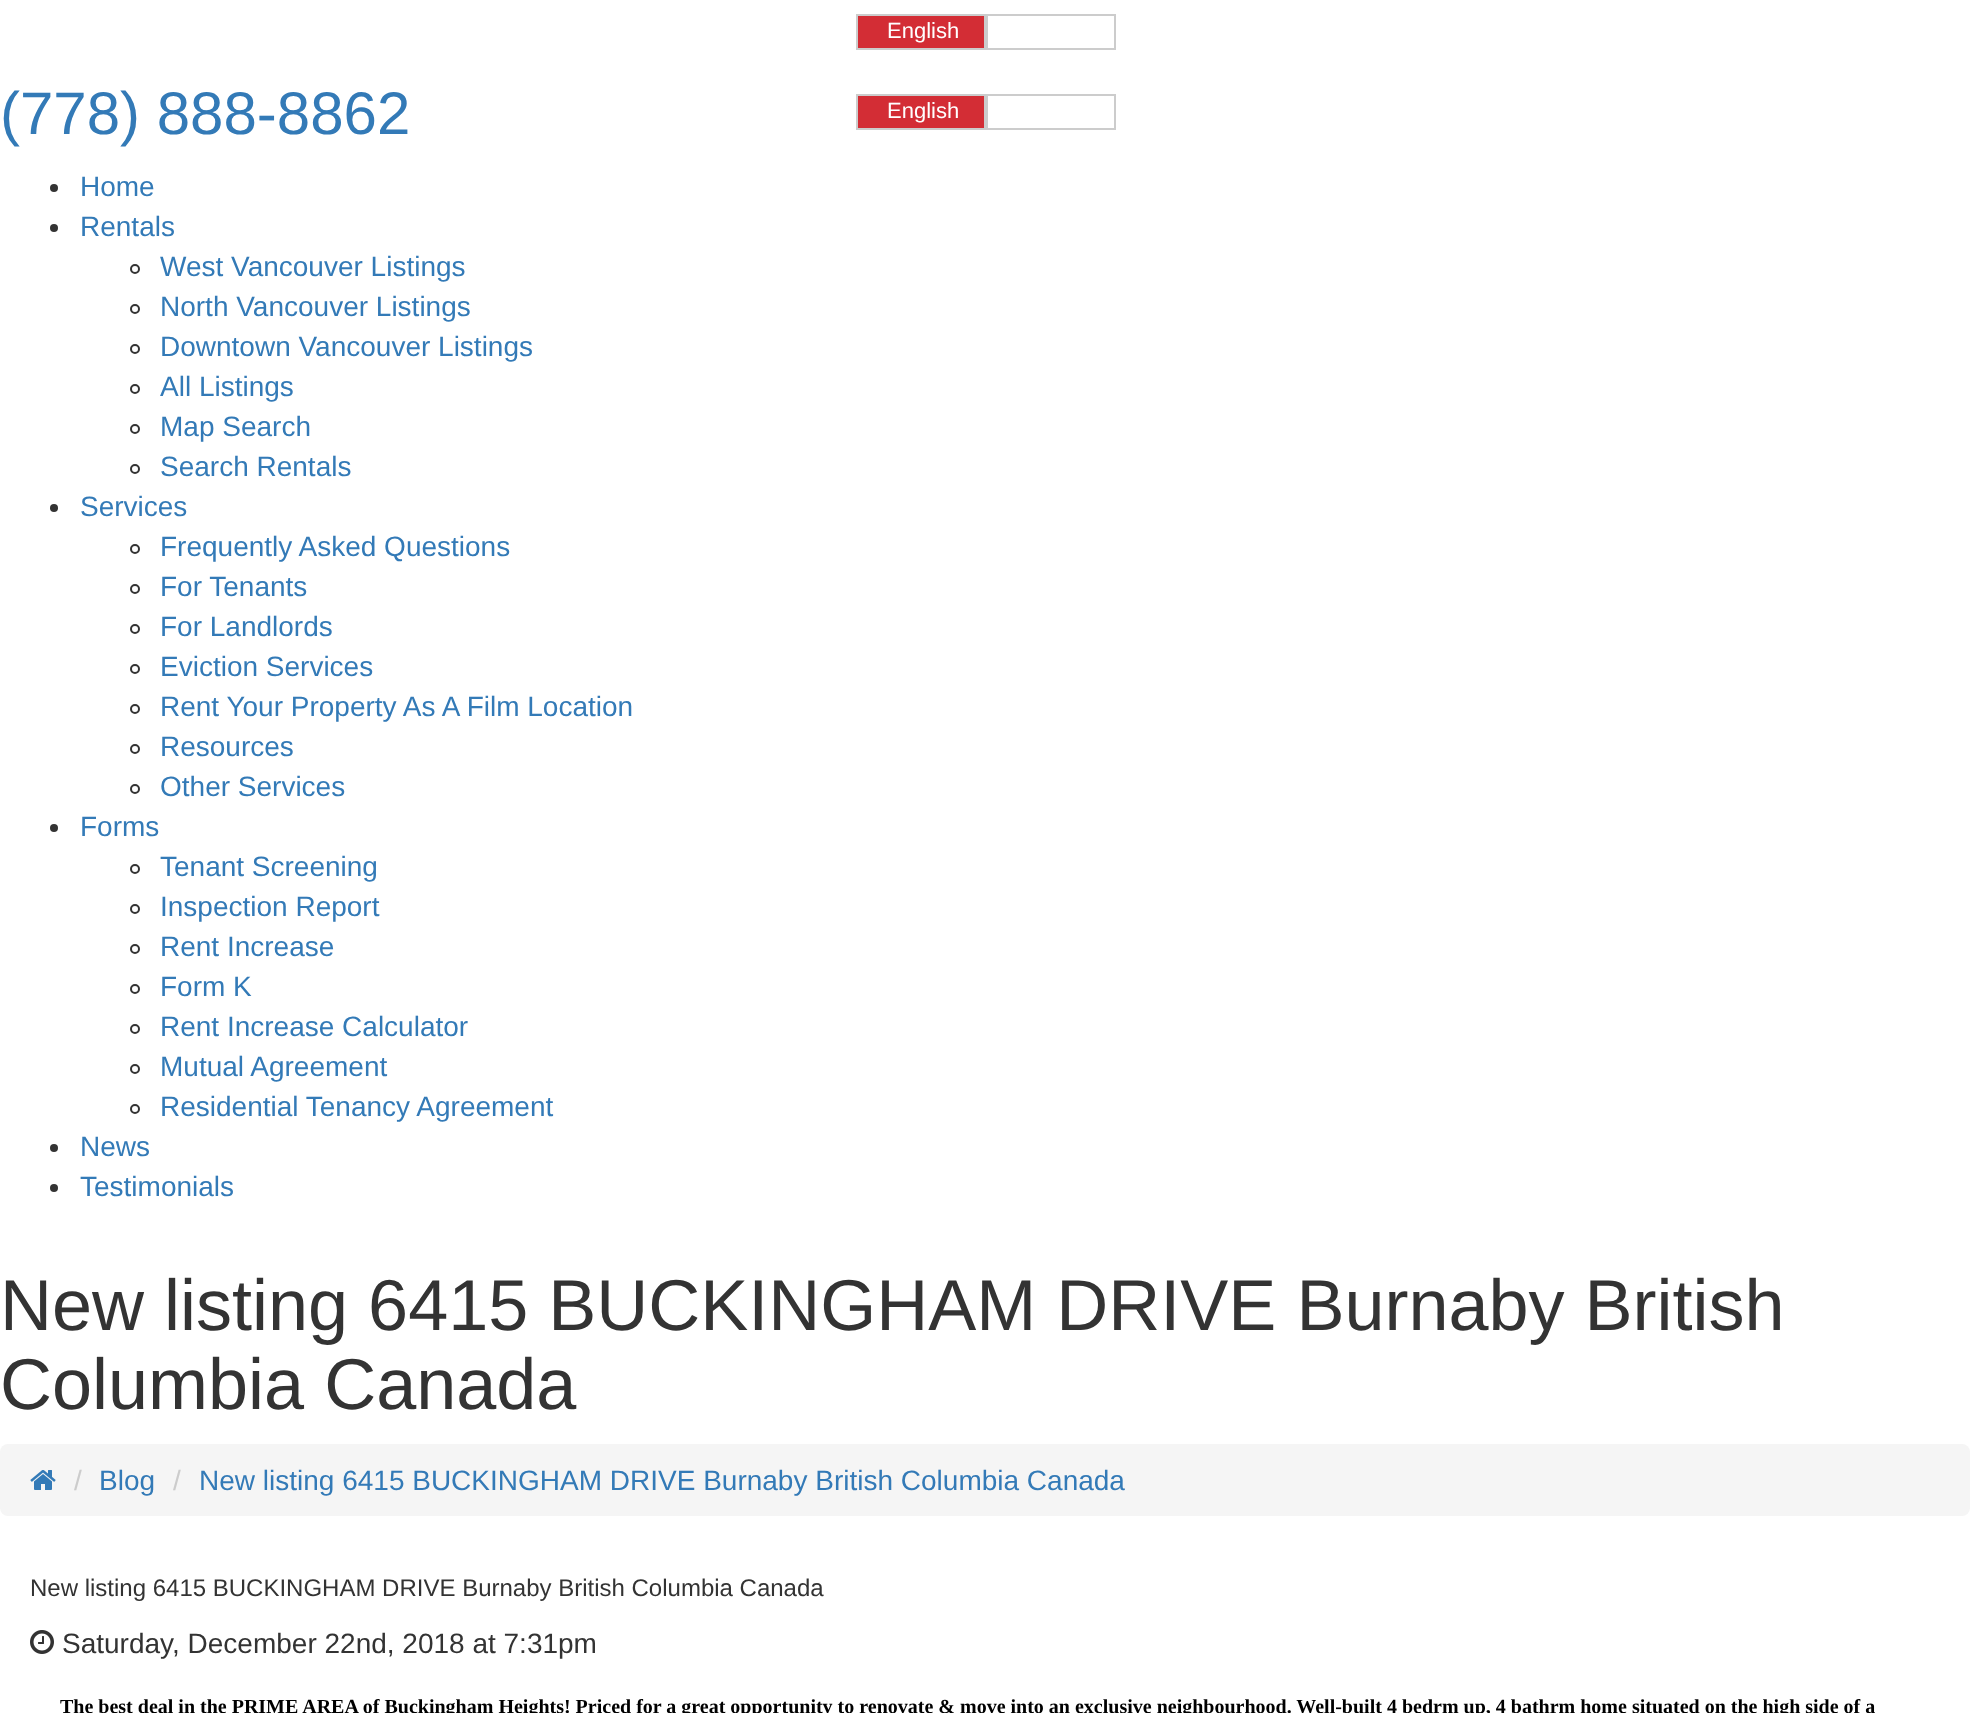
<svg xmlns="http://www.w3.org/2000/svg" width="1970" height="1713">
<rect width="100%" height="100%" fill="#fff"/>
<rect x="857" y="15" width="128" height="34" fill="#d32d35" stroke="#ccc" stroke-width="2"/>
<text x="887" y="38" style="font-family:Liberation Sans;font-size:22px;fill:#fff">English</text>
<rect x="987" y="15" width="128" height="34" fill="none" stroke="#ccc" stroke-width="2"/>
<text x="0" y="134" style="font-family:Liberation Sans;font-size:60px;fill:#337ab7">(778) 888-8862</text>
<rect x="857" y="95" width="128" height="34" fill="#d32d35" stroke="#ccc" stroke-width="2"/>
<text x="887" y="118" style="font-family:Liberation Sans;font-size:22px;fill:#fff">English</text>
<rect x="987" y="95" width="128" height="34" fill="none" stroke="#ccc" stroke-width="2"/>
<circle cx="54" cy="188" r="4" fill="#333"/>
<text x="80" y="196" style="font-family:Liberation Sans;font-size:28px;fill:#337ab7">Home</text>
<circle cx="54" cy="228" r="4" fill="#333"/>
<text x="80" y="236" style="font-family:Liberation Sans;font-size:28px;fill:#337ab7">Rentals</text>
<circle cx="135" cy="269" r="4" fill="none" stroke="#333" stroke-width="2"/>
<text x="160" y="276" style="font-family:Liberation Sans;font-size:28px;fill:#337ab7">West Vancouver Listings</text>
<circle cx="135" cy="309" r="4" fill="none" stroke="#333" stroke-width="2"/>
<text x="160" y="316" style="font-family:Liberation Sans;font-size:28px;fill:#337ab7">North Vancouver Listings</text>
<circle cx="135" cy="349" r="4" fill="none" stroke="#333" stroke-width="2"/>
<text x="160" y="356" style="font-family:Liberation Sans;font-size:28px;fill:#337ab7">Downtown Vancouver Listings</text>
<circle cx="135" cy="389" r="4" fill="none" stroke="#333" stroke-width="2"/>
<text x="160" y="396" style="font-family:Liberation Sans;font-size:28px;fill:#337ab7">All Listings</text>
<circle cx="135" cy="429" r="4" fill="none" stroke="#333" stroke-width="2"/>
<text x="160" y="436" style="font-family:Liberation Sans;font-size:28px;fill:#337ab7">Map Search</text>
<circle cx="135" cy="469" r="4" fill="none" stroke="#333" stroke-width="2"/>
<text x="160" y="476" style="font-family:Liberation Sans;font-size:28px;fill:#337ab7">Search Rentals</text>
<circle cx="54" cy="508" r="4" fill="#333"/>
<text x="80" y="516" style="font-family:Liberation Sans;font-size:28px;fill:#337ab7">Services</text>
<circle cx="135" cy="549" r="4" fill="none" stroke="#333" stroke-width="2"/>
<text x="160" y="556" style="font-family:Liberation Sans;font-size:28px;fill:#337ab7">Frequently Asked Questions</text>
<circle cx="135" cy="589" r="4" fill="none" stroke="#333" stroke-width="2"/>
<text x="160" y="596" style="font-family:Liberation Sans;font-size:28px;fill:#337ab7">For Tenants</text>
<circle cx="135" cy="629" r="4" fill="none" stroke="#333" stroke-width="2"/>
<text x="160" y="636" style="font-family:Liberation Sans;font-size:28px;fill:#337ab7">For Landlords</text>
<circle cx="135" cy="669" r="4" fill="none" stroke="#333" stroke-width="2"/>
<text x="160" y="676" style="font-family:Liberation Sans;font-size:28px;fill:#337ab7">Eviction Services</text>
<circle cx="135" cy="709" r="4" fill="none" stroke="#333" stroke-width="2"/>
<text x="160" y="716" style="font-family:Liberation Sans;font-size:28px;fill:#337ab7">Rent Your Property As A Film Location</text>
<circle cx="135" cy="749" r="4" fill="none" stroke="#333" stroke-width="2"/>
<text x="160" y="756" style="font-family:Liberation Sans;font-size:28px;fill:#337ab7">Resources</text>
<circle cx="135" cy="789" r="4" fill="none" stroke="#333" stroke-width="2"/>
<text x="160" y="796" style="font-family:Liberation Sans;font-size:28px;fill:#337ab7">Other Services</text>
<circle cx="54" cy="828" r="4" fill="#333"/>
<text x="80" y="836" style="font-family:Liberation Sans;font-size:28px;fill:#337ab7">Forms</text>
<circle cx="135" cy="869" r="4" fill="none" stroke="#333" stroke-width="2"/>
<text x="160" y="876" style="font-family:Liberation Sans;font-size:28px;fill:#337ab7">Tenant Screening</text>
<circle cx="135" cy="909" r="4" fill="none" stroke="#333" stroke-width="2"/>
<text x="160" y="916" style="font-family:Liberation Sans;font-size:28px;fill:#337ab7">Inspection Report</text>
<circle cx="135" cy="949" r="4" fill="none" stroke="#333" stroke-width="2"/>
<text x="160" y="956" style="font-family:Liberation Sans;font-size:28px;fill:#337ab7">Rent Increase</text>
<circle cx="135" cy="989" r="4" fill="none" stroke="#333" stroke-width="2"/>
<text x="160" y="996" style="font-family:Liberation Sans;font-size:28px;fill:#337ab7">Form K</text>
<circle cx="135" cy="1029" r="4" fill="none" stroke="#333" stroke-width="2"/>
<text x="160" y="1036" style="font-family:Liberation Sans;font-size:28px;fill:#337ab7">Rent Increase Calculator</text>
<circle cx="135" cy="1069" r="4" fill="none" stroke="#333" stroke-width="2"/>
<text x="160" y="1076" style="font-family:Liberation Sans;font-size:28px;fill:#337ab7">Mutual Agreement</text>
<circle cx="135" cy="1109" r="4" fill="none" stroke="#333" stroke-width="2"/>
<text x="160" y="1116" style="font-family:Liberation Sans;font-size:28px;fill:#337ab7">Residential Tenancy Agreement</text>
<circle cx="54" cy="1148" r="4" fill="#333"/>
<text x="80" y="1156" style="font-family:Liberation Sans;font-size:28px;fill:#337ab7">News</text>
<circle cx="54" cy="1188" r="4" fill="#333"/>
<text x="80" y="1196" style="font-family:Liberation Sans;font-size:28px;fill:#337ab7">Testimonials</text>
<text x="0" y="1330" style="font-family:Liberation Sans;font-size:72px;fill:#333">New listing 6415 BUCKINGHAM DRIVE Burnaby British</text>
<text x="0" y="1409" style="font-family:Liberation Sans;font-size:72px;fill:#333">Columbia Canada</text>
<rect y="1444" width="1970" height="72" rx="8" fill="#f5f5f5"/>
<image x="30" y="1470" width="26" height="20" href="media/1.png"/>
<text x="74" y="1490" style="font-family:Liberation Sans;font-size:28px;fill:#ccc">/</text>
<text x="99" y="1490" style="font-family:Liberation Sans;font-size:28px;fill:#337ab7">Blog</text>
<text x="173" y="1490" style="font-family:Liberation Sans;font-size:28px;fill:#ccc">/</text>
<text x="199" y="1490" style="font-family:Liberation Sans;font-size:28px;fill:#337ab7">New listing 6415 BUCKINGHAM DRIVE Burnaby British Columbia Canada</text>
<text x="30" y="1596" style="font-family:Liberation Sans;font-size:24px;fill:#333">New listing 6415 BUCKINGHAM DRIVE Burnaby British Columbia Canada</text>
<image x="30" y="1630" width="24" height="24" href="media/2.png"/>
<text x="62" y="1653" style="font-family:Liberation Sans;font-size:28px;fill:#333">Saturday, December 22nd, 2018 at 7:31pm</text>
<text x="60" y="1713" style="font-family:Liberation Serif;font-size:20px;font-weight:bold;fill:#000">The best deal in the PRIME AREA of Buckingham Heights! Priced for a great opportunity to renovate &amp; move into an exclusive neighbourhood. Well-built 4 bedrm up, 4 bathrm home situated on the high side of a</text>
</svg>
